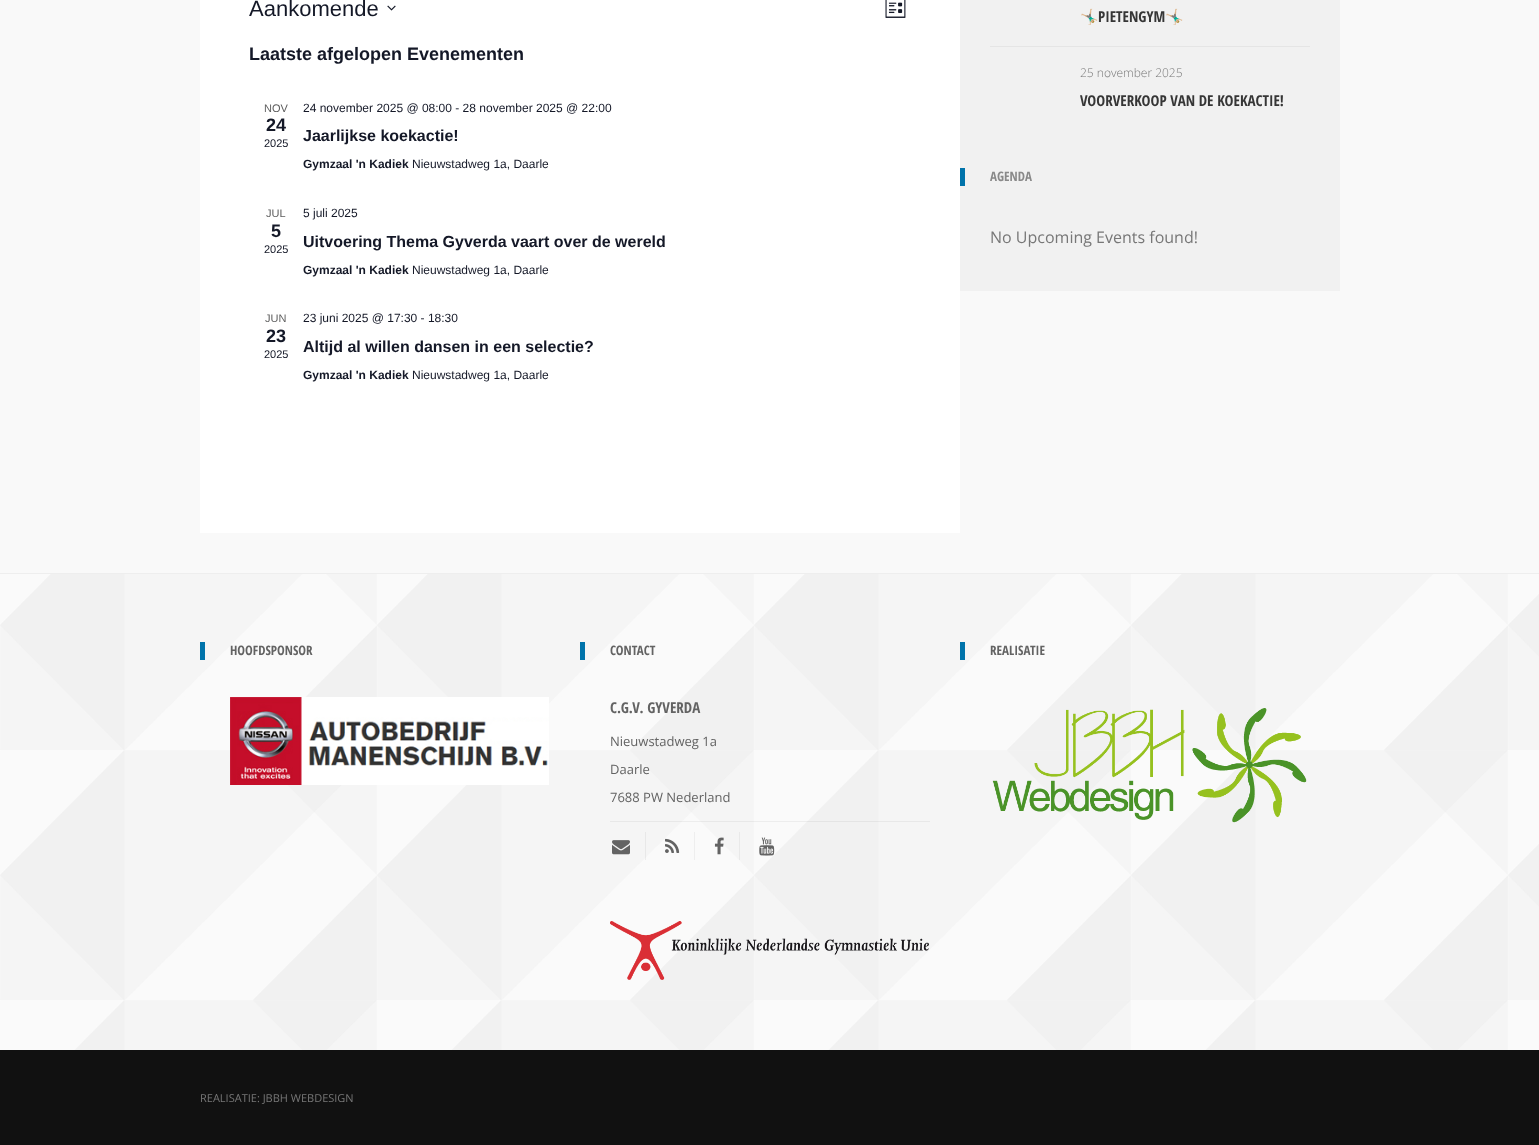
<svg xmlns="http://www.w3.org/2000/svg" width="1539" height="1145">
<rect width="100%" height="100%" fill="#f9f9f9"/>
<rect x="200" width="760" height="533" fill="#fff"/>
<text x="249" y="16" style="font-family:Liberation Sans;font-size:22px;fill:#141827">Aankomende</text>
<image x="387" y="5" width="9" height="6" href="media/1.png"/>
<image x="885" y="0" width="21" height="18" href="media/2.png"/>
<text x="249" y="60" style="font-family:Liberation Sans;font-size:18px;font-weight:bold;fill:#141827">Laatste afgelopen Evenementen</text>
<text x="264" y="112" style="font-family:Liberation Sans;font-size:11px;fill:#5d5d5d">NOV</text>
<text x="266" y="131" style="font-family:Liberation Sans;font-size:18px;font-weight:bold;fill:#141827">24</text>
<text x="264" y="147" style="font-family:Liberation Sans;font-size:11px;fill:#141827">2025</text>
<text x="303" y="112" style="font-family:Liberation Sans;font-size:12px;fill:#141827">24 november 2025 @ 08:00 - 28 november 2025 @ 22:00</text>
<text x="303" y="141" style="font-family:Liberation Sans;font-size:16px;font-weight:bold;fill:#141827">Jaarlijkse koekactie!</text>
<text x="303" y="168" style="font-family:Liberation Sans;font-size:12px;font-weight:bold;fill:#141827">Gymzaal 'n Kadiek</text>
<text x="412" y="168" style="font-family:Liberation Sans;font-size:12px;fill:#141827">Nieuwstadweg 1a, Daarle</text>
<text x="266" y="217" style="font-family:Liberation Sans;font-size:11px;fill:#5d5d5d">JUL</text>
<text x="271" y="237" style="font-family:Liberation Sans;font-size:18px;font-weight:bold;fill:#141827">5</text>
<text x="264" y="253" style="font-family:Liberation Sans;font-size:11px;fill:#141827">2025</text>
<text x="303" y="217" style="font-family:Liberation Sans;font-size:12px;fill:#141827">5 juli 2025</text>
<text x="303" y="247" style="font-family:Liberation Sans;font-size:16px;font-weight:bold;fill:#141827">Uitvoering Thema Gyverda vaart over de wereld</text>
<text x="303" y="274" style="font-family:Liberation Sans;font-size:12px;font-weight:bold;fill:#141827">Gymzaal 'n Kadiek</text>
<text x="412" y="274" style="font-family:Liberation Sans;font-size:12px;fill:#141827">Nieuwstadweg 1a, Daarle</text>
<text x="265" y="322" style="font-family:Liberation Sans;font-size:11px;fill:#5d5d5d">JUN</text>
<text x="266" y="342" style="font-family:Liberation Sans;font-size:18px;font-weight:bold;fill:#141827">23</text>
<text x="264" y="358" style="font-family:Liberation Sans;font-size:11px;fill:#141827">2025</text>
<text x="303" y="322" style="font-family:Liberation Sans;font-size:12px;fill:#141827">23 juni 2025 @ 17:30 - 18:30</text>
<text x="303" y="352" style="font-family:Liberation Sans;font-size:16px;font-weight:bold;fill:#141827">Altijd al willen dansen in een selectie?</text>
<text x="303" y="379" style="font-family:Liberation Sans;font-size:12px;font-weight:bold;fill:#141827">Gymzaal 'n Kadiek</text>
<text x="412" y="379" style="font-family:Liberation Sans;font-size:12px;fill:#141827">Nieuwstadweg 1a, Daarle</text>
<rect x="960" width="380" height="291" fill="#f1f1f1"/>
<rect x="990" y="46" width="320" height="1" fill="#e5e5e5"/>
<text x="1080" y="22" style="font-family:Noto Color Emoji;font-size:15px;font-weight:bold;fill:#363636">🤸🏼‍♂️</text>
<text x="1098" y="22" style="font-family:Open Sans Condensed;font-size:15px;font-weight:bold;fill:#363636">PIETENGYM</text>
<text x="1165" y="22" style="font-family:Noto Color Emoji;font-size:15px;font-weight:bold;fill:#363636">🤸🏼‍♂️</text>
<text x="1080" y="77" style="font-family:Open Sans;font-size:12px;font-weight:300;fill:#777">25 november 2025</text>
<text x="1080" y="106" style="font-family:Open Sans Condensed;font-size:15px;font-weight:bold;fill:#363636">VOORVERKOOP VAN DE KOEKACTIE!</text>
<rect x="960" y="168" width="5" height="18" fill="#0073aa"/>
<text x="990" y="181" style="font-family:Open Sans Condensed;font-size:13px;font-weight:bold;fill:#898989">AGENDA</text>
<text x="990" y="243" style="font-family:Open Sans;font-size:16px;fill:#777">No Upcoming Events found!</text>
<image x="0" y="574" width="1539" height="476" href="media/3.png"/>
<rect y="573" width="1539" height="1" fill="#eee"/>
<rect x="200" y="642" width="5" height="18" fill="#0073aa"/>
<text x="230" y="655" style="font-family:Open Sans Condensed;font-size:13px;font-weight:bold;fill:#636363">HOOFDSPONSOR</text>
<image x="230" y="697" width="319" height="88" href="media/4.png"/>
<rect x="580" y="642" width="5" height="18" fill="#0073aa"/>
<text x="610" y="655" style="font-family:Open Sans Condensed;font-size:13px;font-weight:bold;fill:#636363">CONTACT</text>
<text x="610" y="713" style="font-family:Open Sans Condensed;font-size:15px;font-weight:bold;fill:#636363">C.G.V. GYVERDA</text>
<text x="610" y="746" style="font-family:Open Sans;font-size:13px;fill:#636363">Nieuwstadweg 1a</text>
<text x="610" y="774" style="font-family:Open Sans;font-size:13px;fill:#636363">Daarle</text>
<text x="610" y="802" style="font-family:Open Sans;font-size:13px;fill:#636363">7688 PW Nederland</text>
<rect x="610" y="821" width="320" height="1" fill="#0000000d"/>
<rect x="645" y="832" width="1" height="28" fill="#0000000d"/>
<image x="612" y="840" width="18" height="15" href="media/5.png"/>
<rect x="694" y="832" width="1" height="28" fill="#eee"/>
<image x="665" y="838" width="15" height="15" href="media/6.png"/>
<rect x="739" y="832" width="1" height="28" fill="#e9e9e9"/>
<image x="714" y="837" width="10" height="18" href="media/7.png"/>
<image x="759" y="837" width="16" height="19" href="media/8.png"/>
<image x="610" y="921" width="319" height="59" href="media/9.png"/>
<rect x="960" y="642" width="5" height="18" fill="#0073aa"/>
<text x="990" y="655" style="font-family:Open Sans Condensed;font-size:13px;font-weight:bold;fill:#636363">REALISATIE</text>
<image x="992" y="708" width="315" height="115" href="media/10.png"/>
<rect y="1050" width="1539" height="95" fill="#111"/>
<text x="200" y="1102" style="font-family:Open Sans;font-size:11px;fill:#777">REALISATIE: JBBH WEBDESIGN</text>
</svg>
